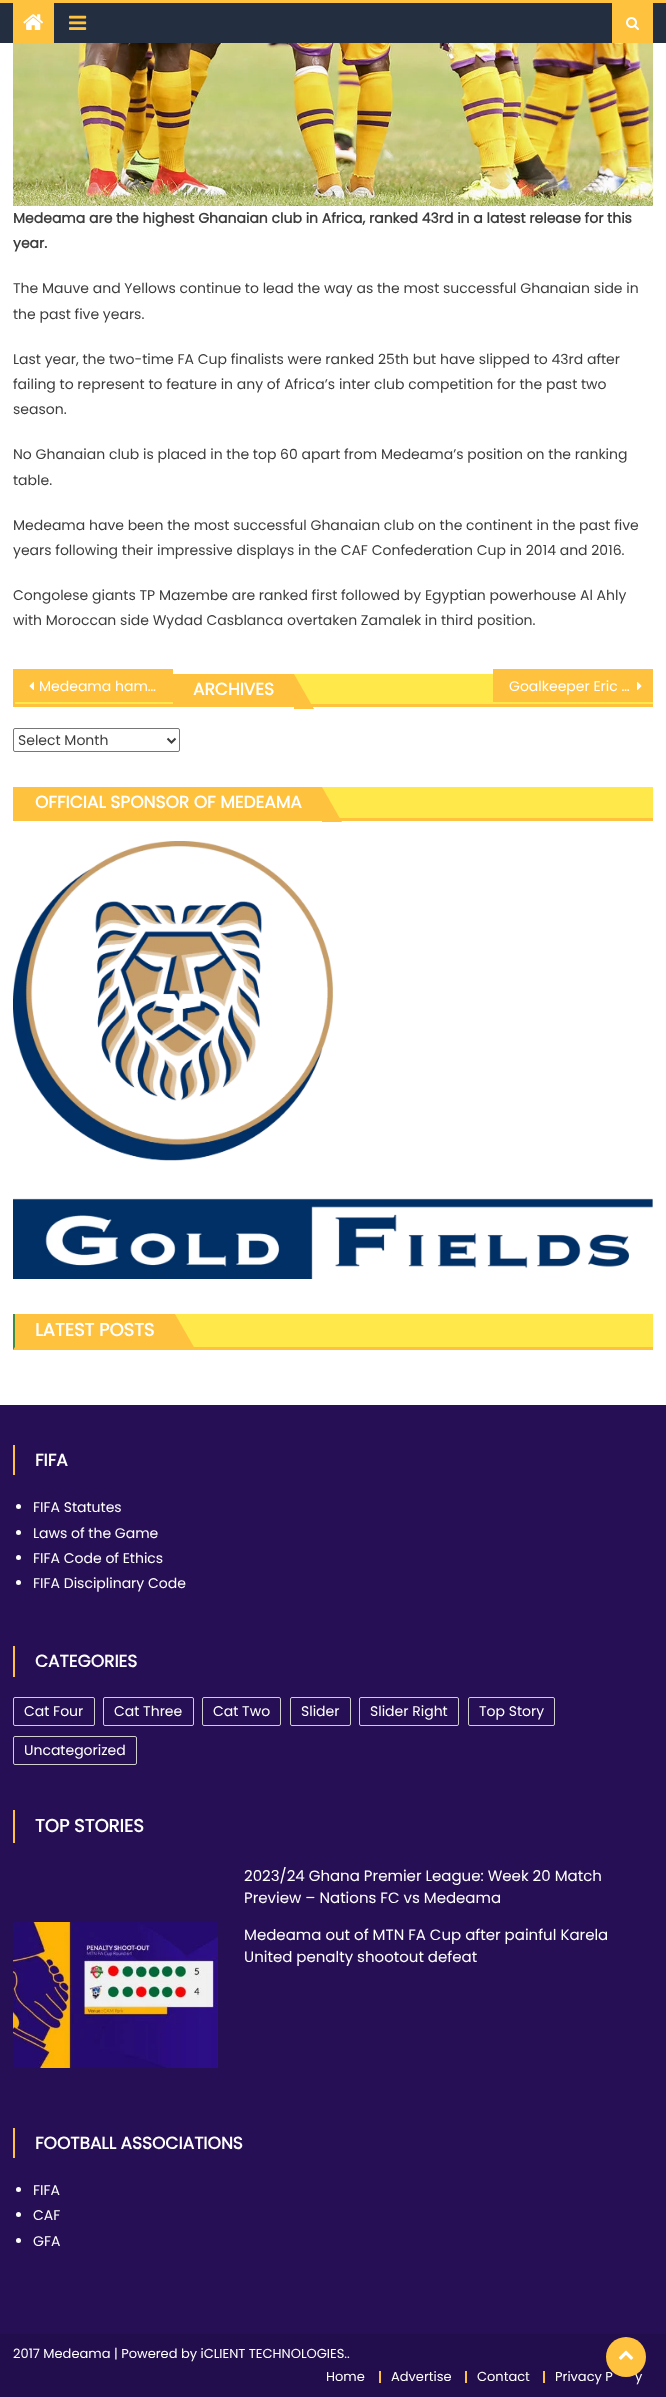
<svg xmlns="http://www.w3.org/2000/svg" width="666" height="2397">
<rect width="100%" height="100%" fill="#fff"/>
<rect y="3" width="666" height="40" fill="#232f40"/>
<rect width="666" height="3" fill="#fec23e"/>
<rect x="13" y="3" width="41" height="40" fill="#fec23e"/>
<image x="23" y="14" width="21" height="16" href="media/1.png"/>
<image x="69" y="15" width="18" height="15" href="media/2.png"/>
<rect x="612" y="3" width="41" height="40" fill="#fec23e"/>
<image x="626" y="17" width="13" height="13" href="media/3.png"/>
<image x="13" y="43" width="640" height="163" href="media/4.png"/>
<text x="13" y="223" style="font-family:Poppins;font-size:14px;font-weight:bold;fill:#3d3d3d">Medeama are the highest Ghanaian club in Africa, ranked 43rd in a latest release for this</text>
<text x="13" y="248" style="font-family:Poppins;font-size:14px;font-weight:bold;fill:#3d3d3d">year.</text>
<text x="13" y="293" style="font-family:Poppins;font-size:14px;fill:#3d3d3d">The Mauve and Yellows continue to lead the way as the most successful Ghanaian side in</text>
<text x="13" y="319" style="font-family:Poppins;font-size:14px;fill:#3d3d3d">the past five years.</text>
<text x="13" y="364" style="font-family:Poppins;font-size:14px;fill:#3d3d3d">Last year, the two-time FA Cup finalists were ranked 25th but have slipped to 43rd after</text>
<text x="13" y="389" style="font-family:Poppins;font-size:14px;fill:#3d3d3d">failing to represent to feature in any of Africa’s inter club competition for the past two</text>
<text x="13" y="414" style="font-family:Poppins;font-size:14px;fill:#3d3d3d">season.</text>
<text x="13" y="459" style="font-family:Poppins;font-size:14px;fill:#3d3d3d">No Ghanaian club is placed in the top 60 apart from Medeama’s position on the ranking</text>
<text x="13" y="485" style="font-family:Poppins;font-size:14px;fill:#3d3d3d">table.</text>
<text x="13" y="530" style="font-family:Poppins;font-size:14px;fill:#3d3d3d">Medeama have been the most successful Ghanaian club on the continent in the past five</text>
<text x="13" y="555" style="font-family:Poppins;font-size:14px;fill:#3d3d3d">years following their impressive displays in the CAF Confederation Cup in 2014 and 2016.</text>
<text x="13" y="600" style="font-family:Poppins;font-size:14px;fill:#3d3d3d">Congolese giants TP Mazembe are ranked first followed by Egyptian powerhouse Al Ahly</text>
<text x="13" y="625" style="font-family:Poppins;font-size:14px;fill:#3d3d3d">with Moroccan side Wydad Casblanca overtaken Zamalek in third position.</text>
<rect x="15" y="674" width="638" height="30" fill="#ffe94a"/>
<rect x="13" y="669" width="160" height="33" fill="#fec23e"/>
<image x="29" y="682" width="5" height="8" href="media/5.png"/>
<text x="39" y="691" style="font-family:Poppins;font-size:14px;fill:#fff">Medeama ham…</text>
<rect x="493" y="669" width="160" height="33" fill="#fec23e"/>
<text x="509" y="691" style="font-family:Poppins;font-size:14px;fill:#fff">Goalkeeper Eric …</text>
<image x="637" y="682" width="5" height="8" href="media/6.png"/>
<rect x="13" y="704" width="640" height="3" fill="#fec23e"/>
<rect x="13" y="702" width="2" height="5" fill="#fec23e"/>
<rect x="173" y="674" width="121" height="30" fill="#fec23e"/>
<text x="193" y="695" style="font-family:Poppins;font-size:17px;font-weight:bold;fill:#fff">ARCHIVES</text>
<path d="M314 709h-20v-35z" fill="#fec23e"/>
<rect x="13.5" y="728.5" width="166" height="23" rx="1.5" fill="none" stroke="#767676"/>
<path d="M167.5 738.5l4 4l4-4" fill="none" stroke="#3d3d3d" stroke-width="2"/>
<text x="18" y="745" style="font-family:Poppins;font-size:14px;fill:#3d3d3d">Select Month</text>
<rect x="322" y="787" width="331" height="31" fill="#ffe94a"/>
<rect x="13" y="818" width="640" height="3" fill="#fec23e"/>
<rect x="13" y="787" width="2" height="34" fill="#fec23e"/>
<rect x="15" y="787" width="307" height="31" fill="#fec23e"/>
<text x="35" y="808" style="font-family:Poppins;font-size:17px;font-weight:bold;fill:#fff">OFFICIAL SPONSOR OF MEDEAMA</text>
<path d="M342 822h-20v-35z" fill="#fec23e"/>
<image x="13" y="841" width="640" height="438" href="media/7.png"/>
<rect x="13" y="1314" width="640" height="36" fill="#ffe94a"/>
<path d="M653 1350h-640l2-3h638z" fill="#fec23e"/>
<path d="M13 1350v-36h2v33z" fill="#408c40"/>
<rect x="15" y="1314" width="160" height="33" fill="#fec23e"/>
<text x="35" y="1336" style="font-family:Poppins;font-size:18px;font-weight:bold;fill:#fff">LATEST POSTS</text>
<path d="M195 1349h-20v-35z" fill="#fec23e"/>
<rect y="1405" width="666" height="929" fill="#260f54"/>
<rect x="13" y="1445" width="2" height="30" fill="#fec23e"/>
<text x="35" y="1466" style="font-family:Poppins;font-size:17px;font-weight:bold;fill:#fff">FIFA</text>
<circle cx="18.5" cy="1506.5" r="2.5" fill="#fff"/>
<text x="33" y="1512" style="font-family:Poppins;font-size:14px;fill:#fff">FIFA Statutes</text>
<circle cx="18.5" cy="1532.5" r="2.5" fill="#fff"/>
<text x="33" y="1538" style="font-family:Poppins;font-size:14px;fill:#fff">Laws of the Game</text>
<circle cx="18.5" cy="1557.5" r="2.5" fill="#fff"/>
<text x="33" y="1563" style="font-family:Poppins;font-size:14px;fill:#fff">FIFA Code of Ethics</text>
<circle cx="18.5" cy="1582.5" r="2.5" fill="#fff"/>
<text x="33" y="1588" style="font-family:Poppins;font-size:14px;fill:#fff">FIFA Disciplinary Code</text>
<rect x="13" y="1646" width="2" height="31" fill="#fec23e"/>
<text x="35" y="1667" style="font-family:Poppins;font-size:17px;font-weight:bold;fill:#fff">CATEGORIES</text>
<rect x="13.5" y="1697.5" width="81" height="28" rx="1.5" fill="none" stroke="#cfcfcf"/>
<text x="24" y="1716" style="font-family:Poppins;font-size:14px;fill:#fff">Cat Four</text>
<rect x="103.5" y="1697.5" width="90" height="28" rx="1.5" fill="none" stroke="#cfcfcf"/>
<text x="114" y="1716" style="font-family:Poppins;font-size:14px;fill:#fff">Cat Three</text>
<rect x="202.5" y="1697.5" width="78" height="28" rx="1.5" fill="none" stroke="#cfcfcf"/>
<text x="213" y="1716" style="font-family:Poppins;font-size:14px;fill:#fff">Cat Two</text>
<rect x="290.5" y="1697.5" width="60" height="28" rx="1.5" fill="none" stroke="#cfcfcf"/>
<text x="301" y="1716" style="font-family:Poppins;font-size:14px;fill:#fff">Slider</text>
<rect x="359.5" y="1697.5" width="99" height="28" rx="1.5" fill="none" stroke="#cfcfcf"/>
<text x="370" y="1716" style="font-family:Poppins;font-size:14px;fill:#fff">Slider Right</text>
<rect x="468.5" y="1697.5" width="86" height="28" rx="1.5" fill="none" stroke="#cfcfcf"/>
<text x="479" y="1716" style="font-family:Poppins;font-size:14px;fill:#fff">Top Story</text>
<rect x="13.5" y="1736.5" width="123" height="28" rx="1.5" fill="none" stroke="#cfcfcf"/>
<text x="24" y="1755" style="font-family:Poppins;font-size:14px;fill:#fff">Uncategorized</text>
<rect x="13" y="1810" width="2" height="33" fill="#fec23e"/>
<text x="35" y="1832" style="font-family:Poppins;font-size:18px;font-weight:bold;fill:#fff">TOP STORIES</text>
<text x="244" y="1881" style="font-family:Poppins;font-size:15px;fill:#fff">2023/24 Ghana Premier League: Week 20 Match</text>
<text x="244" y="1903" style="font-family:Poppins;font-size:15px;fill:#fff">Preview – Nations FC vs Medeama</text>
<image x="13" y="1922" width="205" height="146" href="media/8.png"/>
<text x="244" y="1940" style="font-family:Poppins;font-size:15px;fill:#fff">Medeama out of MTN FA Cup after painful Karela</text>
<text x="244" y="1962" style="font-family:Poppins;font-size:15px;fill:#fff">United penalty shootout defeat</text>
<rect x="13" y="2128" width="2" height="30" fill="#fec23e"/>
<text x="35" y="2149" style="font-family:Poppins;font-size:17px;font-weight:bold;fill:#fff">FOOTBALL ASSOCIATIONS</text>
<circle cx="18.5" cy="2189.5" r="2.5" fill="#fff"/>
<text x="33" y="2195" style="font-family:Poppins;font-size:14px;fill:#fff">FIFA</text>
<circle cx="18.5" cy="2214.5" r="2.5" fill="#fff"/>
<text x="33" y="2220" style="font-family:Poppins;font-size:14px;fill:#fff">CAF</text>
<circle cx="18.5" cy="2240.5" r="2.5" fill="#fff"/>
<text x="33" y="2246" style="font-family:Poppins;font-size:14px;fill:#fff">GFA</text>
<rect y="2334" width="666" height="63" fill="#220e4c"/>
<text x="13" y="2358" style="font-family:Poppins;font-size:13px;fill:#fff">2017 Medeama | Powered by iCLIENT TECHNOLOGIES..</text>
<text x="326" y="2381" style="font-family:Poppins;font-size:13px;fill:#fff">Home</text>
<rect x="379" y="2371" width="2" height="12" fill="#fec23e"/>
<text x="391" y="2381" style="font-family:Poppins;font-size:13px;fill:#fff">Advertise</text>
<rect x="465" y="2371" width="2" height="12" fill="#fec23e"/>
<text x="477" y="2381" style="font-family:Poppins;font-size:13px;fill:#fff">Contact</text>
<rect x="543" y="2371" width="2" height="12" fill="#fec23e"/>
<text x="555" y="2381" style="font-family:Poppins;font-size:13px;fill:#fff">Privacy P</text>
<text x="635" y="2381" style="font-family:Poppins;font-size:13px;fill:#fff">y</text>
<circle cx="626" cy="2357" r="20" fill="#fec23e"/>
<image x="618" y="2350" width="16" height="10" href="media/9.png"/>
</svg>
